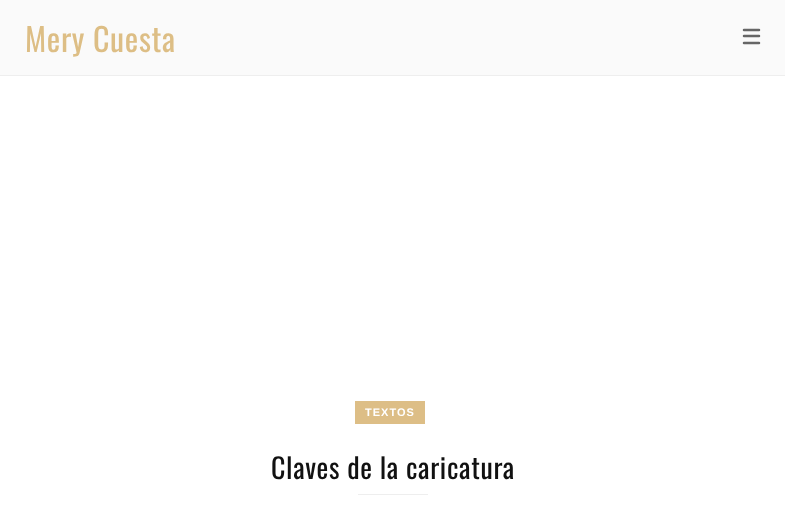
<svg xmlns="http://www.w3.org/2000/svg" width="785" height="519">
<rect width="100%" height="100%" fill="#fff"/>
<rect width="785" height="75" fill="#fafafa"/>
<rect y="75" width="785" height="1" fill="#eee"/>
<text x="25" y="52" style="font-family:Oswald;font-size:32px;letter-spacing:0.65px;fill:#ddbe85">Mery Cuesta</text>
<path d="M744 30h15m-15 6h15m-15 7h15" fill="none" stroke="#666" stroke-width="2.5" stroke-linecap="round"/>
<rect x="355" y="401" width="70" height="23" fill="#ddbe86"/>
<text x="365" y="416" style="font-family:Liberation Sans;font-size:11px;font-weight:bold;letter-spacing:1px;fill:#fff">TEXTOS</text>
<text x="271" y="479" style="font-family:Oswald;font-size:28px;letter-spacing:0.65px;fill:#111">Claves de la caricatura</text>
<rect x="358" y="494" width="70" height="1" fill="#eee"/>
</svg>
